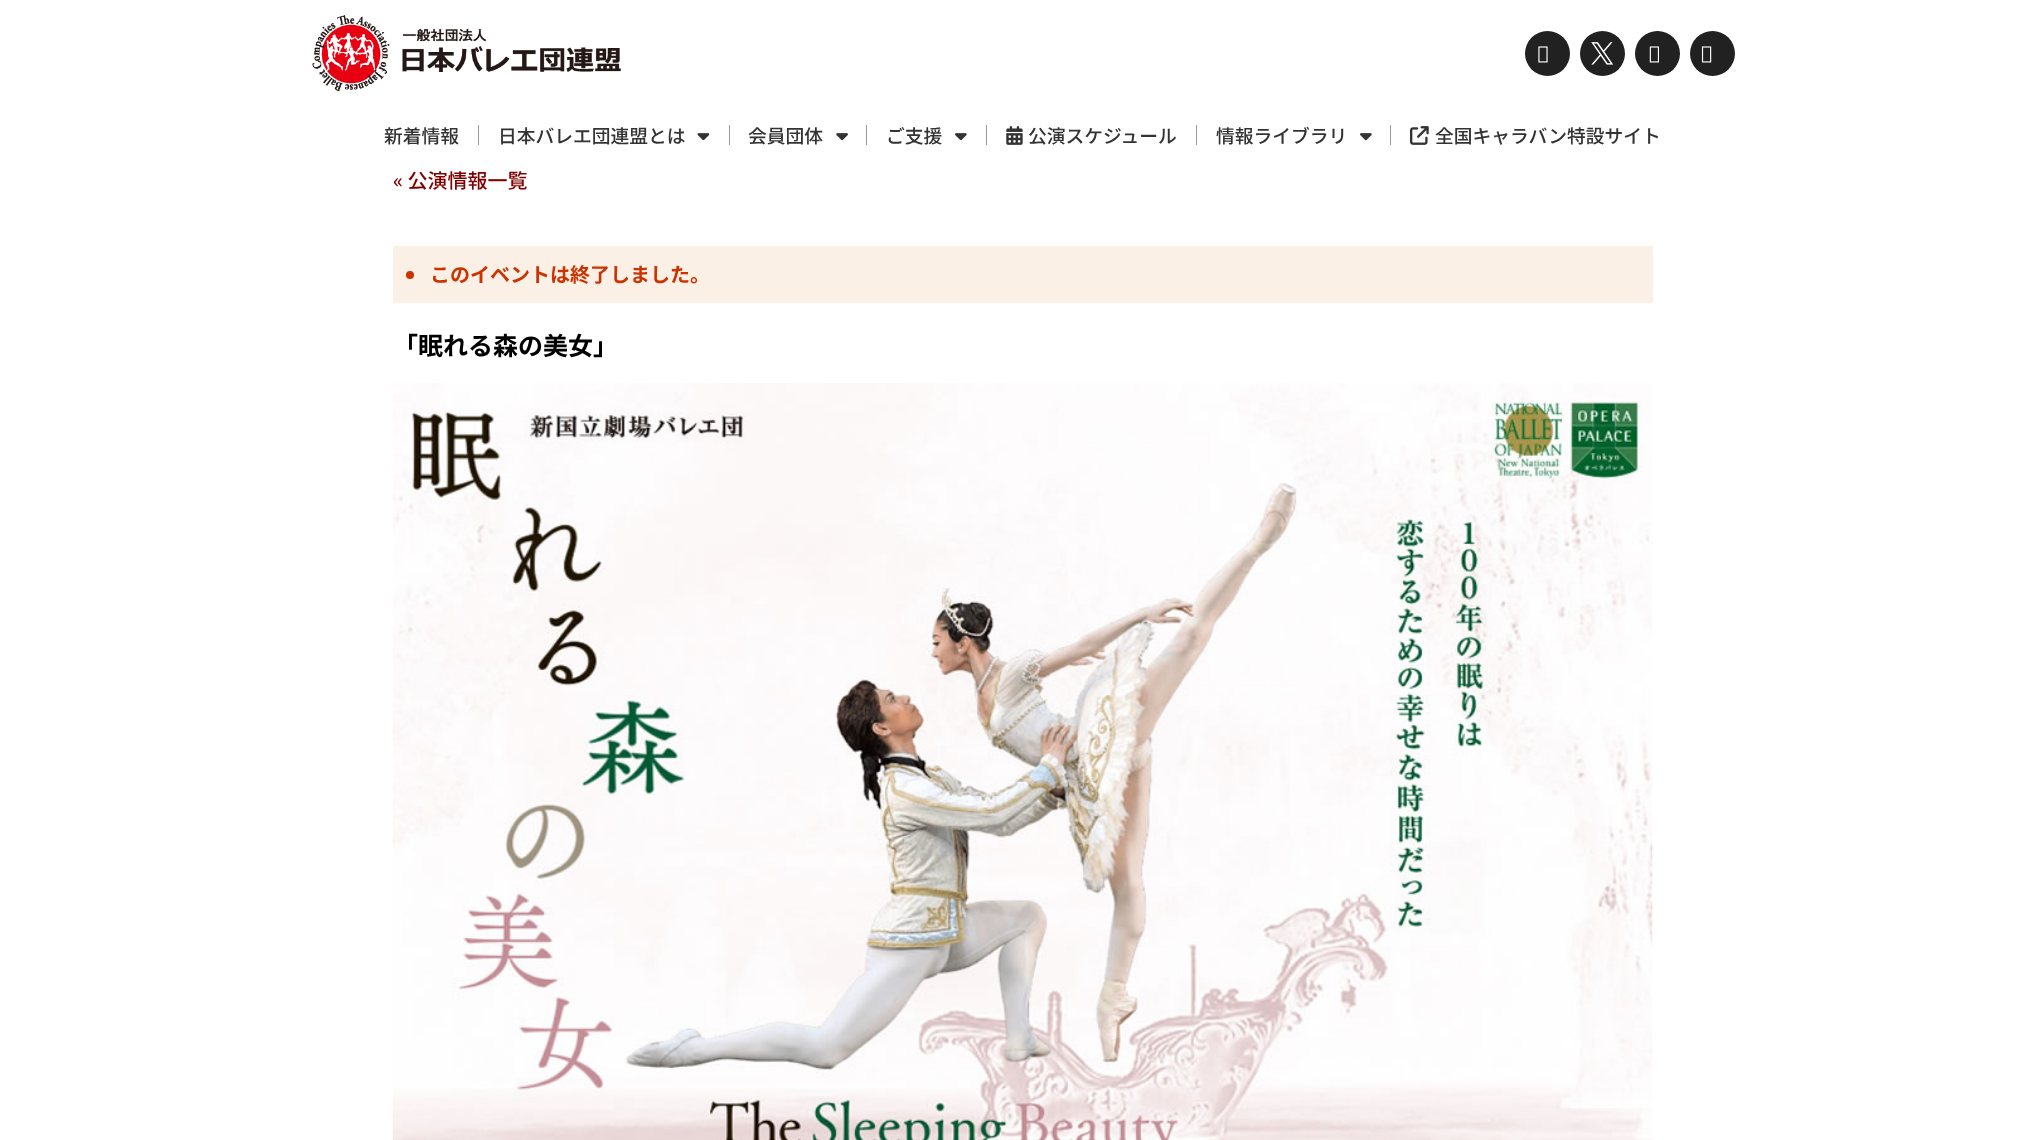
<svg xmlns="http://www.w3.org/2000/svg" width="2044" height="1140">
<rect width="100%" height="100%" fill="#fff"/>
<image x="312" y="15" width="309" height="77" href="media/1.png"/>
<circle cx="1547.5" cy="53.5" r="22.5" fill="#212121"/>
<image x="1538" y="46" width="10" height="17" href="media/2.png"/>
<circle cx="1602.5" cy="53.5" r="22.5" fill="#212121"/>
<image x="1591" y="42" width="23" height="23" href="media/3.png"/>
<circle cx="1657.5" cy="53.5" r="22.5" fill="#212121"/>
<image x="1649" y="46" width="10" height="17" href="media/4.png"/>
<circle cx="1712.5" cy="53.5" r="22.5" fill="#212121"/>
<image x="1701" y="46" width="11" height="17" href="media/5.png"/>
<text x="384" y="143" style="font-family:Noto Sans JP;font-size:18.75px;font-weight:500;fill:#333">新着情報</text>
<rect x="478" y="125" width="1" height="20" fill="#999"/>
<text x="498" y="143" style="font-family:Noto Sans JP;font-size:18.75px;font-weight:500;fill:#333">日本バレエ団連盟とは</text>
<image x="697" y="133" width="13" height="8" href="media/6.png"/>
<rect x="729" y="125" width="1" height="20" fill="#999"/>
<text x="748" y="143" style="font-family:Noto Sans JP;font-size:18.75px;font-weight:500;fill:#333">会員団体</text>
<image x="836" y="133" width="12" height="8" href="media/7.png"/>
<rect x="866" y="125" width="1" height="20" fill="#999"/>
<text x="886" y="143" style="font-family:Noto Sans JP;font-size:18.75px;font-weight:500;fill:#333">ご支援</text>
<image x="955" y="133" width="12" height="8" href="media/8.png"/>
<rect x="986" y="125" width="1" height="20" fill="#999"/>
<image x="1006" y="126" width="17" height="19" href="media/9.png"/>
<text x="1028" y="143" style="font-family:Noto Sans JP;font-size:18.75px;font-weight:500;fill:#333">公演スケジュール</text>
<rect x="1196" y="125" width="1" height="20" fill="#999"/>
<text x="1216" y="143" style="font-family:Noto Sans JP;font-size:18.75px;font-weight:500;fill:#333">情報ライブラリ</text>
<image x="1360" y="133" width="12" height="8" href="media/8.png"/>
<rect x="1390" y="125" width="1" height="20" fill="#999"/>
<image x="1410" y="126" width="19" height="19" href="media/10.png"/>
<text x="1435" y="143" style="font-family:Noto Sans JP;font-size:18.75px;font-weight:500;fill:#333">全国キャラバン特設サイト</text>
<text x="393" y="188" style="font-family:Noto Sans JP;font-size:20px;font-weight:500;fill:#800000">« 公演情報一覧</text>
<rect x="393" y="246" width="1260" height="57" fill="#faf0e6"/>
<circle cx="410" cy="275" r="4" fill="#c30"/>
<text x="430" y="282" style="font-family:Noto Sans JP;font-size:20px;font-weight:bold;fill:#c30">このイベントは終了しました。</text>
<text x="393" y="355" style="font-family:Noto Sans JP;font-size:25px;font-weight:bold;fill:#000">「眠れる森の美女」</text>
<image x="392" y="383" width="1261" height="757" href="media/11.png"/>
</svg>
